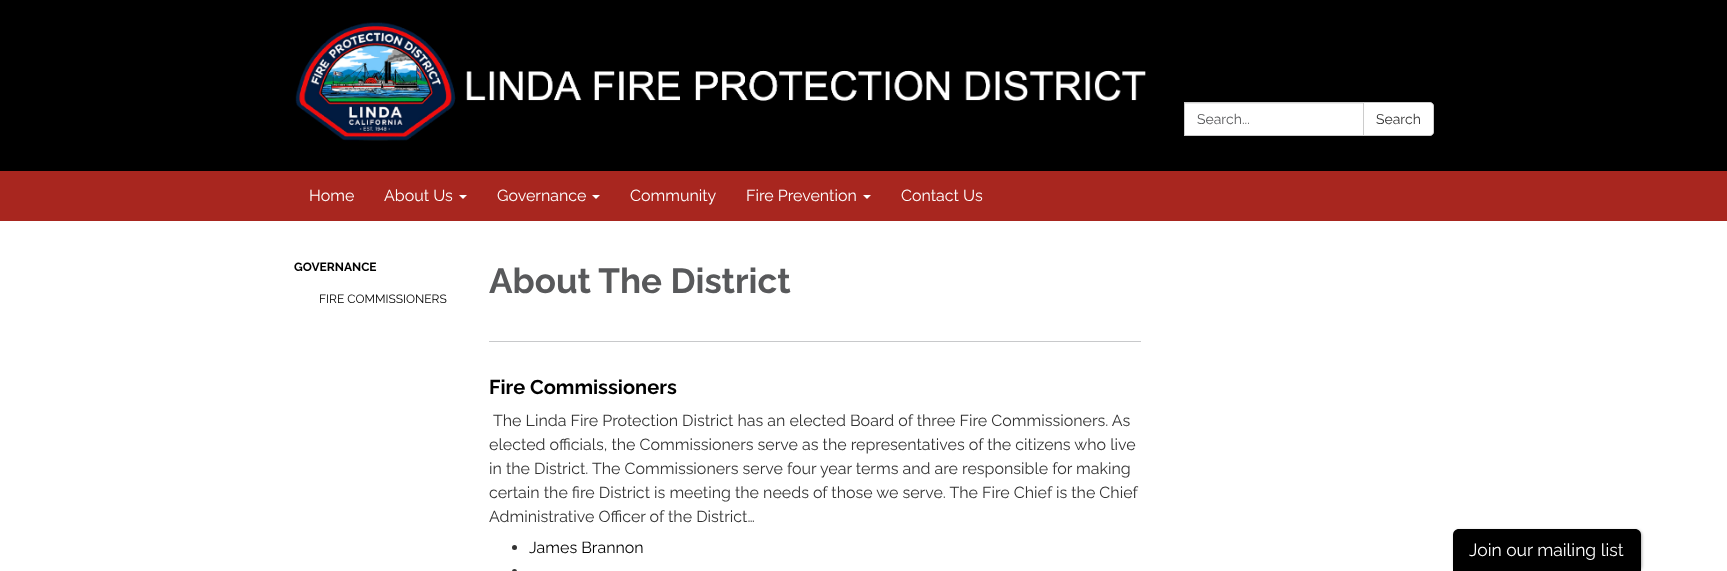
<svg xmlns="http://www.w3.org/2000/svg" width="1727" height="571">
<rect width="100%" height="100%" fill="#a8261f"/>
<rect width="1727" height="171" fill="#000"/>
<image x="295" y="22" width="851" height="119" href="media/1.png"/>
<rect x="1185" y="104" width="178" height="31" fill="#fff"/>
<rect x="1185" y="103" width="178" height="1" fill="#ececec"/>
<rect x="1184.5" y="102.5" width="179" height="33" fill="none" stroke="#ccc"/>
<text x="1197" y="124" style="font-family:Raleway;font-size:14px;fill:#58595b">Search...</text>
<path d="M1363.5 102.5h66.5c2 0 3.5 1.5 3.5 3.5v26c0 2-1.5 3.5-3.5 3.5h-66.5z" fill="#fff" stroke="#ccc"/>
<text x="1376" y="124" style="font-family:Raleway;font-size:14px;fill:#333">Search</text>
<text x="309" y="201" style="font-family:Raleway;font-size:16px;fill:#fff">Home</text>
<text x="384" y="201" style="font-family:Raleway;font-size:16px;fill:#fff">About Us</text>
<path d="M459 195h8l-4 4z" fill="#fff"/>
<text x="497" y="201" style="font-family:Raleway;font-size:16px;fill:#fff">Governance</text>
<path d="M592 195h8l-4 4z" fill="#fff"/>
<text x="630" y="201" style="font-family:Raleway;font-size:16px;fill:#fff">Community</text>
<text x="746" y="201" style="font-family:Raleway;font-size:16px;fill:#fff">Fire Prevention</text>
<path d="M863 195h8l-4 4z" fill="#fff"/>
<text x="901" y="201" style="font-family:Raleway;font-size:16px;fill:#fff">Contact Us</text>
<rect y="221" width="1727" height="350" fill="#fff"/>
<text x="294" y="271" style="font-family:Raleway;font-size:12px;font-weight:bold;fill:#000">GOVERNANCE</text>
<text x="319" y="303" style="font-family:Raleway;font-size:12px;fill:#000">FIRE COMMISSIONERS</text>
<text x="489" y="293" style="font-family:Raleway;font-size:35px;font-weight:bold;fill:#58595b">About The District</text>
<rect x="489" y="341" width="652" height="1" fill="#c8c9cb"/>
<text x="489" y="394" style="font-family:Raleway;font-size:20px;font-weight:bold;fill:#000">Fire Commissioners</text>
<text x="493" y="426" style="font-family:Raleway;font-size:16px;fill:#333">The Linda Fire Protection District has an elected Board of three Fire Commissioners. As</text>
<text x="489" y="450" style="font-family:Raleway;font-size:16px;fill:#333">elected officials, the Commissioners serve as the representatives of the citizens who live</text>
<text x="489" y="474" style="font-family:Raleway;font-size:16px;fill:#333">in the District. The Commissioners serve four year terms and are responsible for making</text>
<text x="489" y="498" style="font-family:Raleway;font-size:16px;fill:#333">certain the fire District is meeting the needs of those we serve. The Fire Chief is the Chief</text>
<text x="489" y="522" style="font-family:Raleway;font-size:16px;fill:#333">Administrative Officer of the District…</text>
<circle cx="514.5" cy="547.5" r="2.5" fill="#333"/>
<text x="529" y="553" style="font-family:Raleway;font-size:16px;fill:#000">James Brannon</text>
<circle cx="514.5" cy="571.5" r="2.5" fill="#333"/>
<rect x="1454" y="530" width="188" height="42" rx="6" fill="#0000004d" filter="blur(1.5px)"/>
<path d="M1459 529h176c3.5 0 6 2.5 6 6v36h-188v-36c0-3.5 2.5-6 6-6z" fill="#000"/>
<text x="1469" y="556" style="font-family:Raleway;font-size:17.5px;fill:#fff">Join our mailing list</text>
</svg>
